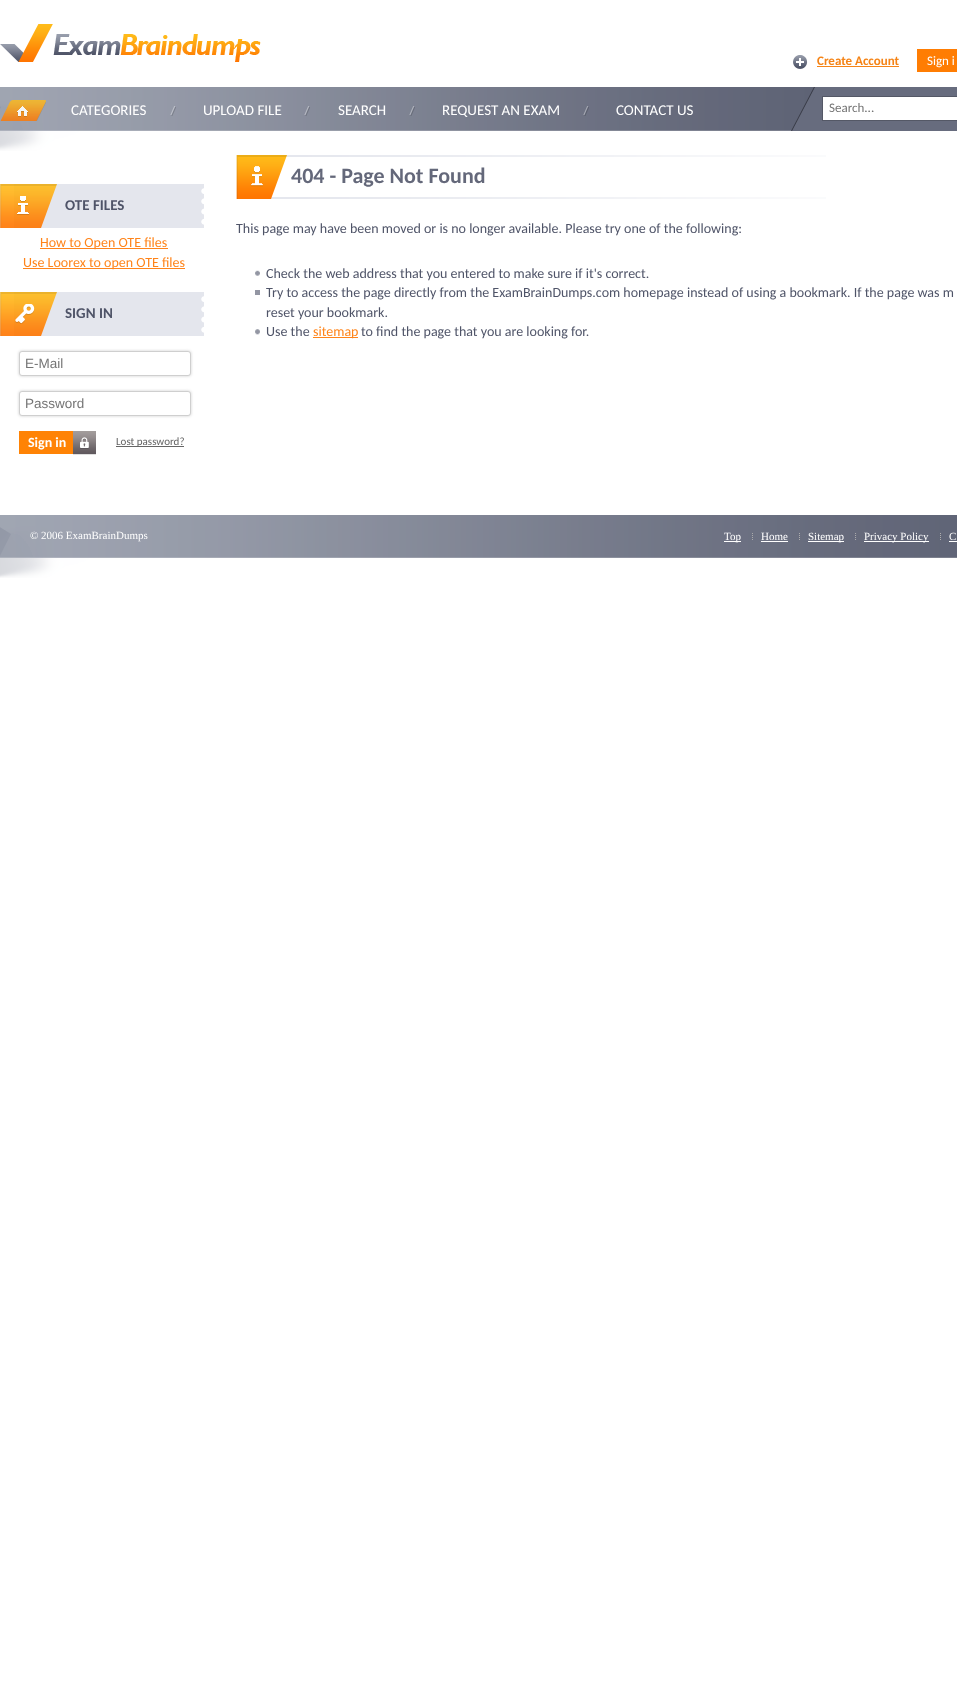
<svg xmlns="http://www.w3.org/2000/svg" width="957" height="1686">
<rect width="100%" height="100%" fill="#fff"/>
<image x="0" y="24" width="261" height="38" href="media/1.png"/>
<image x="793" y="55" width="15" height="14" href="media/2.png"/>
<text x="817" y="65" style="font-family:Carlito;font-size:13px;font-weight:bold;fill:#f58417">Create Account</text>
<rect x="817" y="66" width="82" height="1" fill="#f58417"/>
<rect x="917" y="49" width="40" height="23" fill="#ff7d03"/>
<text x="927" y="65" style="font-family:Carlito;font-size:13px;fill:#fff">Sign i</text>
<image x="0" y="87" width="957" height="64" href="media/3.png"/>
<image x="0" y="100" width="46" height="21" href="media/4.png"/>
<text x="71" y="115" style="font-family:Carlito;font-size:15px;fill:#fff">CATEGORIES</text>
<image x="170" y="106" width="6" height="10" href="media/5.png"/>
<text x="203" y="115" style="font-family:Carlito;font-size:15px;fill:#fff">UPLOAD FILE</text>
<image x="304" y="106" width="6" height="10" href="media/6.png"/>
<text x="338" y="115" style="font-family:Carlito;font-size:15px;fill:#fff">SEARCH</text>
<image x="409" y="106" width="6" height="10" href="media/7.png"/>
<text x="442" y="115" style="font-family:Carlito;font-size:15px;fill:#fff">REQUEST AN EXAM</text>
<image x="583" y="106" width="6" height="10" href="media/8.png"/>
<text x="616" y="115" style="font-family:Carlito;font-size:15px;fill:#fff">CONTACT US</text>
<rect x="822.5" y="96.5" width="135" height="24" fill="#fff" stroke="#545866"/>
<text x="829" y="112" style="font-family:Carlito;font-size:13px;fill:#757575">Search...</text>
<image x="0" y="184" width="204" height="44" href="media/9.png"/>
<image x="17" y="196" width="12" height="19" href="media/10.png"/>
<text x="65" y="210" style="font-family:Carlito;font-size:15px;font-weight:bold;fill:#4f5468">OTE FILES</text>
<rect x="40" y="248" width="128" height="1" fill="#ff841a"/>
<text x="40" y="247" style="font-family:Carlito;font-size:14px;fill:#ff841a">How to Open OTE files</text>
<rect x="23" y="268" width="162" height="1" fill="#ff841a"/>
<text x="23" y="267" style="font-family:Carlito;font-size:14px;fill:#ff841a">Use Loorex to open OTE files</text>
<image x="0" y="292" width="204" height="44" href="media/9.png"/>
<image x="15" y="304" width="20" height="20" href="media/11.png"/>
<text x="65" y="318" style="font-family:Carlito;font-size:15px;font-weight:bold;fill:#4f5468">SIGN IN</text>
<rect x="19" y="351" width="172" height="25" rx="3" fill="#ccc" filter="blur(1.5px)"/>
<rect x="19.5" y="351.5" width="171" height="24" rx="2.5" fill="#fff" stroke="#cfcfcf"/>
<text x="25" y="368" style="font-family:Liberation Sans;font-size:13.5px;fill:#757575">E-Mail</text>
<rect x="19" y="391" width="172" height="25" rx="3" fill="#ccc" filter="blur(1.5px)"/>
<rect x="19.5" y="391.5" width="171" height="24" rx="2.5" fill="#fff" stroke="#cfcfcf"/>
<text x="25" y="408" style="font-family:Liberation Sans;font-size:13.5px;fill:#757575">Password</text>
<rect x="19" y="431" width="77" height="23" fill="#ff8305"/>
<text x="28" y="447" style="font-family:Carlito;font-size:14px;font-weight:bold;fill:#fff">Sign in</text>
<image x="73" y="431" width="23" height="24" href="media/12.png"/>
<rect x="116" y="446" width="68" height="1" fill="#656565"/>
<text x="116" y="445" style="font-family:Carlito;font-size:11px;fill:#656565">Lost password?</text>
<image x="236" y="155" width="590" height="44" href="media/13.png"/>
<image x="251" y="166" width="12" height="21" href="media/14.png"/>
<text x="291" y="183" style="font-family:Carlito;font-size:22px;font-weight:bold;fill:#64687a">404 - Page Not Found</text>
<text x="236" y="233" style="font-family:Carlito;font-size:14px;fill:#4f5468">This page may have been moved or is no longer available. Please try one of the following:</text>
<image x="255" y="270" width="5" height="6" href="media/15.png"/>
<text x="266" y="278" style="font-family:Carlito;font-size:14px;fill:#4f5468">Check the web address that you entered to make sure if it's correct.</text>
<rect x="255" y="290" width="5" height="5" fill="#9396a3"/>
<text x="266" y="297" style="font-family:Carlito;font-size:14px;fill:#4f5468">Try to access the page directly from the ExamBrainDumps.com homepage instead of using a bookmark. If the page was m</text>
<text x="266" y="317" style="font-family:Carlito;font-size:14px;fill:#4f5468">reset your bookmark.</text>
<image x="255" y="329" width="5" height="6" href="media/16.png"/>
<text x="266" y="336" style="font-family:Carlito;font-size:14px;fill:#4f5468">Use the</text>
<rect x="313" y="337" width="45" height="1" fill="#ff841a"/>
<text x="313" y="336" style="font-family:Carlito;font-size:14px;fill:#ff841a">sitemap</text>
<text x="361" y="336" style="font-family:Carlito;font-size:14px;fill:#4f5468">to find the page that you are looking for.</text>
<image x="0" y="515" width="957" height="63" href="media/17.png"/>
<text x="30" y="539" style="font-family:Liberation Serif;font-size:11px;fill:#fff">© 2006 ExamBrainDumps</text>
<rect x="724" y="541" width="17" height="1" fill="#fff"/>
<text x="724" y="540" style="font-family:Liberation Serif;font-size:11px;fill:#fff">Top</text>
<image x="752" y="533" width="1" height="7" href="media/18.png"/>
<text x="761" y="540" style="font-family:Liberation Serif;font-size:11px;fill:#fff">Home</text>
<rect x="761" y="541" width="27" height="1" fill="#fff"/>
<image x="799" y="533" width="1" height="7" href="media/19.png"/>
<rect x="808" y="541" width="36" height="1" fill="#fff"/>
<text x="808" y="540" style="font-family:Liberation Serif;font-size:11px;fill:#fff">Sitemap</text>
<image x="855" y="533" width="2" height="7" href="media/20.png"/>
<rect x="864" y="541" width="65" height="1" fill="#fff"/>
<text x="864" y="540" style="font-family:Liberation Serif;font-size:11px;fill:#fff">Privacy Policy</text>
<image x="940" y="533" width="1" height="7" href="media/21.png"/>
<text x="949" y="540" style="font-family:Liberation Serif;font-size:11px;fill:#fff">C</text>
<rect x="949" y="541" width="8" height="1" fill="#fff"/>
</svg>
